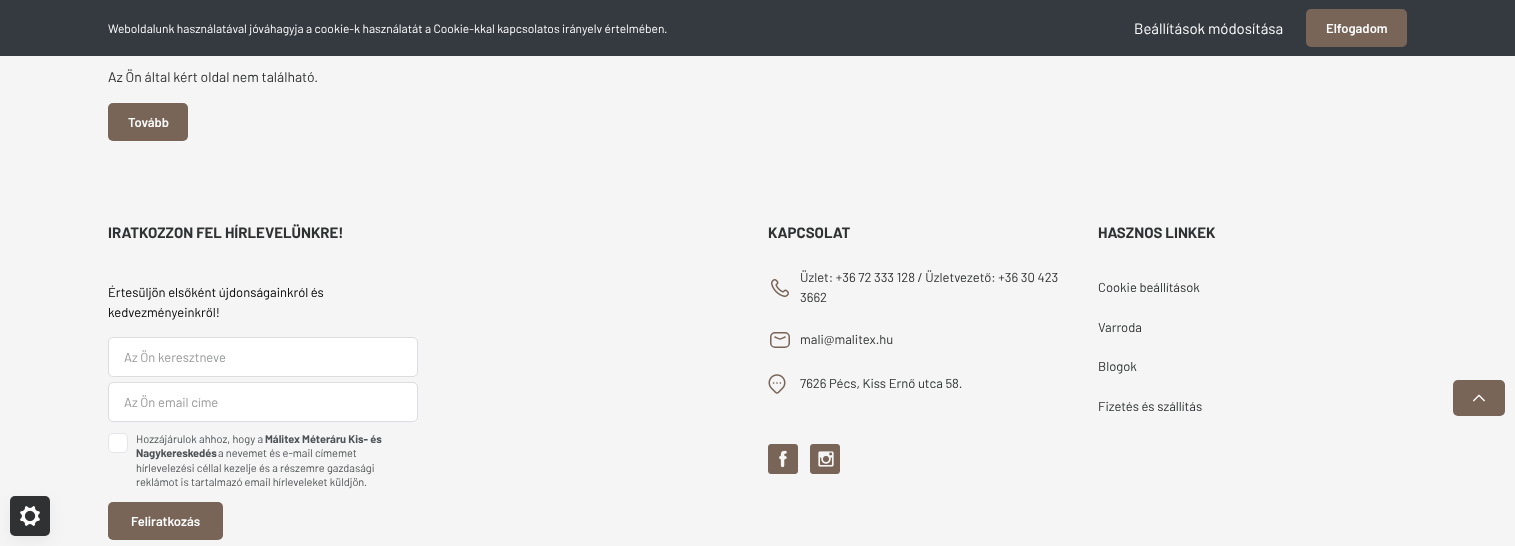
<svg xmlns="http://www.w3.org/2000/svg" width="1515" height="546">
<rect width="100%" height="100%" fill="#f5f5f5"/>
<rect width="1515" height="56" fill="#343a40"/>
<text x="108" y="33" style="font-family:Barlow;font-size:12px;fill:#fff">Weboldalunk használatával jóváhagyja a cookie-k használatát a Cookie-kkal kapcsolatos irányelv értelmében.</text>
<text x="1134" y="34" style="font-family:Barlow;font-size:15px;fill:#fff">Beállítások módosítása</text>
<rect x="1306" y="9" width="101" height="38" rx="5" fill="#786558"/>
<text x="1326" y="33" style="font-family:Barlow;font-size:13px;font-weight:600;fill:#fff">Elfogadom</text>
<rect x="10" y="501" width="40" height="40" rx="5" fill="#0000000d" filter="blur(7.5px)"/>
<rect x="10" y="496" width="40" height="40" rx="5" fill="#2f3132"/>
<image x="20" y="506" width="20" height="20" href="media/1.png"/>
<text x="108" y="82" style="font-family:Barlow;font-size:14px;fill:#2f3132">Az Ön által kért oldal nem található.</text>
<rect x="108" y="103" width="80" height="38" rx="5" fill="#786558"/>
<text x="128" y="127" style="font-family:Barlow;font-size:13px;font-weight:600;fill:#fff">Tovább</text>
<text x="108" y="238" style="font-family:Barlow;font-size:15px;font-weight:bold;fill:#2f3132">IRATKOZZON FEL HÍRLEVELÜNKRE!</text>
<text x="108" y="297" style="font-family:Barlow;font-size:13px;fill:#000">Értesüljön elsőként újdonságainkról és</text>
<text x="108" y="317" style="font-family:Barlow;font-size:13px;fill:#000">kedvezményeinkről!</text>
<rect x="108.5" y="337.5" width="309" height="39" rx="4.5" fill="#fff" stroke="#dddde1"/>
<text x="124" y="362" style="font-family:Barlow;font-size:13px;fill:#979899">Az Ön keresztneve</text>
<rect x="108.5" y="382.5" width="309" height="39" rx="4.5" fill="#fff" stroke="#dddde1"/>
<text x="124" y="407" style="font-family:Barlow;font-size:13px;fill:#979899">Az Ön email címe</text>
<rect x="108.5" y="433.5" width="19" height="19" rx="4.5" fill="#fff" stroke="#e4e4ea"/>
<text x="136" y="443" style="font-family:Barlow;font-size:11px;fill:#4f5153">Hozzájárulok ahhoz, hogy a</text>
<text x="265" y="443" style="font-family:Barlow;font-size:11px;font-weight:bold;fill:#4f5153">Málitex Méteráru Kis- és</text>
<text x="136" y="457" style="font-family:Barlow;font-size:11px;font-weight:bold;fill:#4f5153">Nagykereskedés</text>
<text x="218" y="457" style="font-family:Barlow;font-size:11px;fill:#4f5153">a nevemet és e-mail címemet</text>
<text x="136" y="472" style="font-family:Barlow;font-size:11px;fill:#4f5153">hírlevelezési céllal kezelje és a részemre gazdasági</text>
<text x="136" y="486" style="font-family:Barlow;font-size:11px;fill:#4f5153">reklámot is tartalmazó email hírleveleket küldjön.</text>
<rect x="108" y="502" width="115" height="38" rx="5" fill="#786558"/>
<text x="131" y="526" style="font-family:Barlow;font-size:13px;font-weight:600;fill:#fff">Feliratkozás</text>
<text x="768" y="238" style="font-family:Barlow;font-size:15px;font-weight:bold;fill:#2f3132">KAPCSOLAT</text>
<image x="771" y="279" width="18" height="18" href="media/2.png"/>
<text x="800" y="282" style="font-family:Barlow;font-size:13px;fill:#2f3132">Üzlet: +36 72 333 128 / Üzletvezető: +36 30 423</text>
<text x="800" y="302" style="font-family:Barlow;font-size:13px;fill:#2f3132">3662</text>
<rect x="770.75" y="332.75" width="18.5" height="14.5" rx="4.25" fill="none" stroke="#786558" stroke-width="1.5"/>
<path d="M775 337c5.5 2.5 4.5 2.5 10 0" fill="none" stroke="#786558" stroke-width="1.5" stroke-linecap="round" stroke-linejoin="round"/>
<text x="800" y="344" style="font-family:Barlow;font-size:13px;fill:#2f3132">mali@malitex.hu</text>
<image x="768" y="374" width="18" height="20" href="media/3.png"/>
<text x="800" y="388" style="font-family:Barlow;font-size:13px;fill:#2f3132">7626 Pécs, Kiss Ernő utca 58.</text>
<image x="768" y="444" width="30" height="30" href="media/4.png"/>
<image x="810" y="444" width="30" height="30" href="media/5.png"/>
<text x="1098" y="238" style="font-family:Barlow;font-size:15px;font-weight:bold;fill:#2f3132">HASZNOS LINKEK</text>
<text x="1098" y="292" style="font-family:Barlow;font-size:13px;fill:#2f3132">Cookie beállítások</text>
<text x="1098" y="332" style="font-family:Barlow;font-size:13px;fill:#2f3132">Varroda</text>
<text x="1098" y="371" style="font-family:Barlow;font-size:13px;fill:#2f3132">Blogok</text>
<text x="1098" y="411" style="font-family:Barlow;font-size:13px;fill:#2f3132">Fizetés és szállítás</text>
<rect x="1453" y="380" width="52" height="36" rx="5" fill="#786558"/>
<image x="1473" y="394" width="12" height="8" href="media/6.png"/>
</svg>
